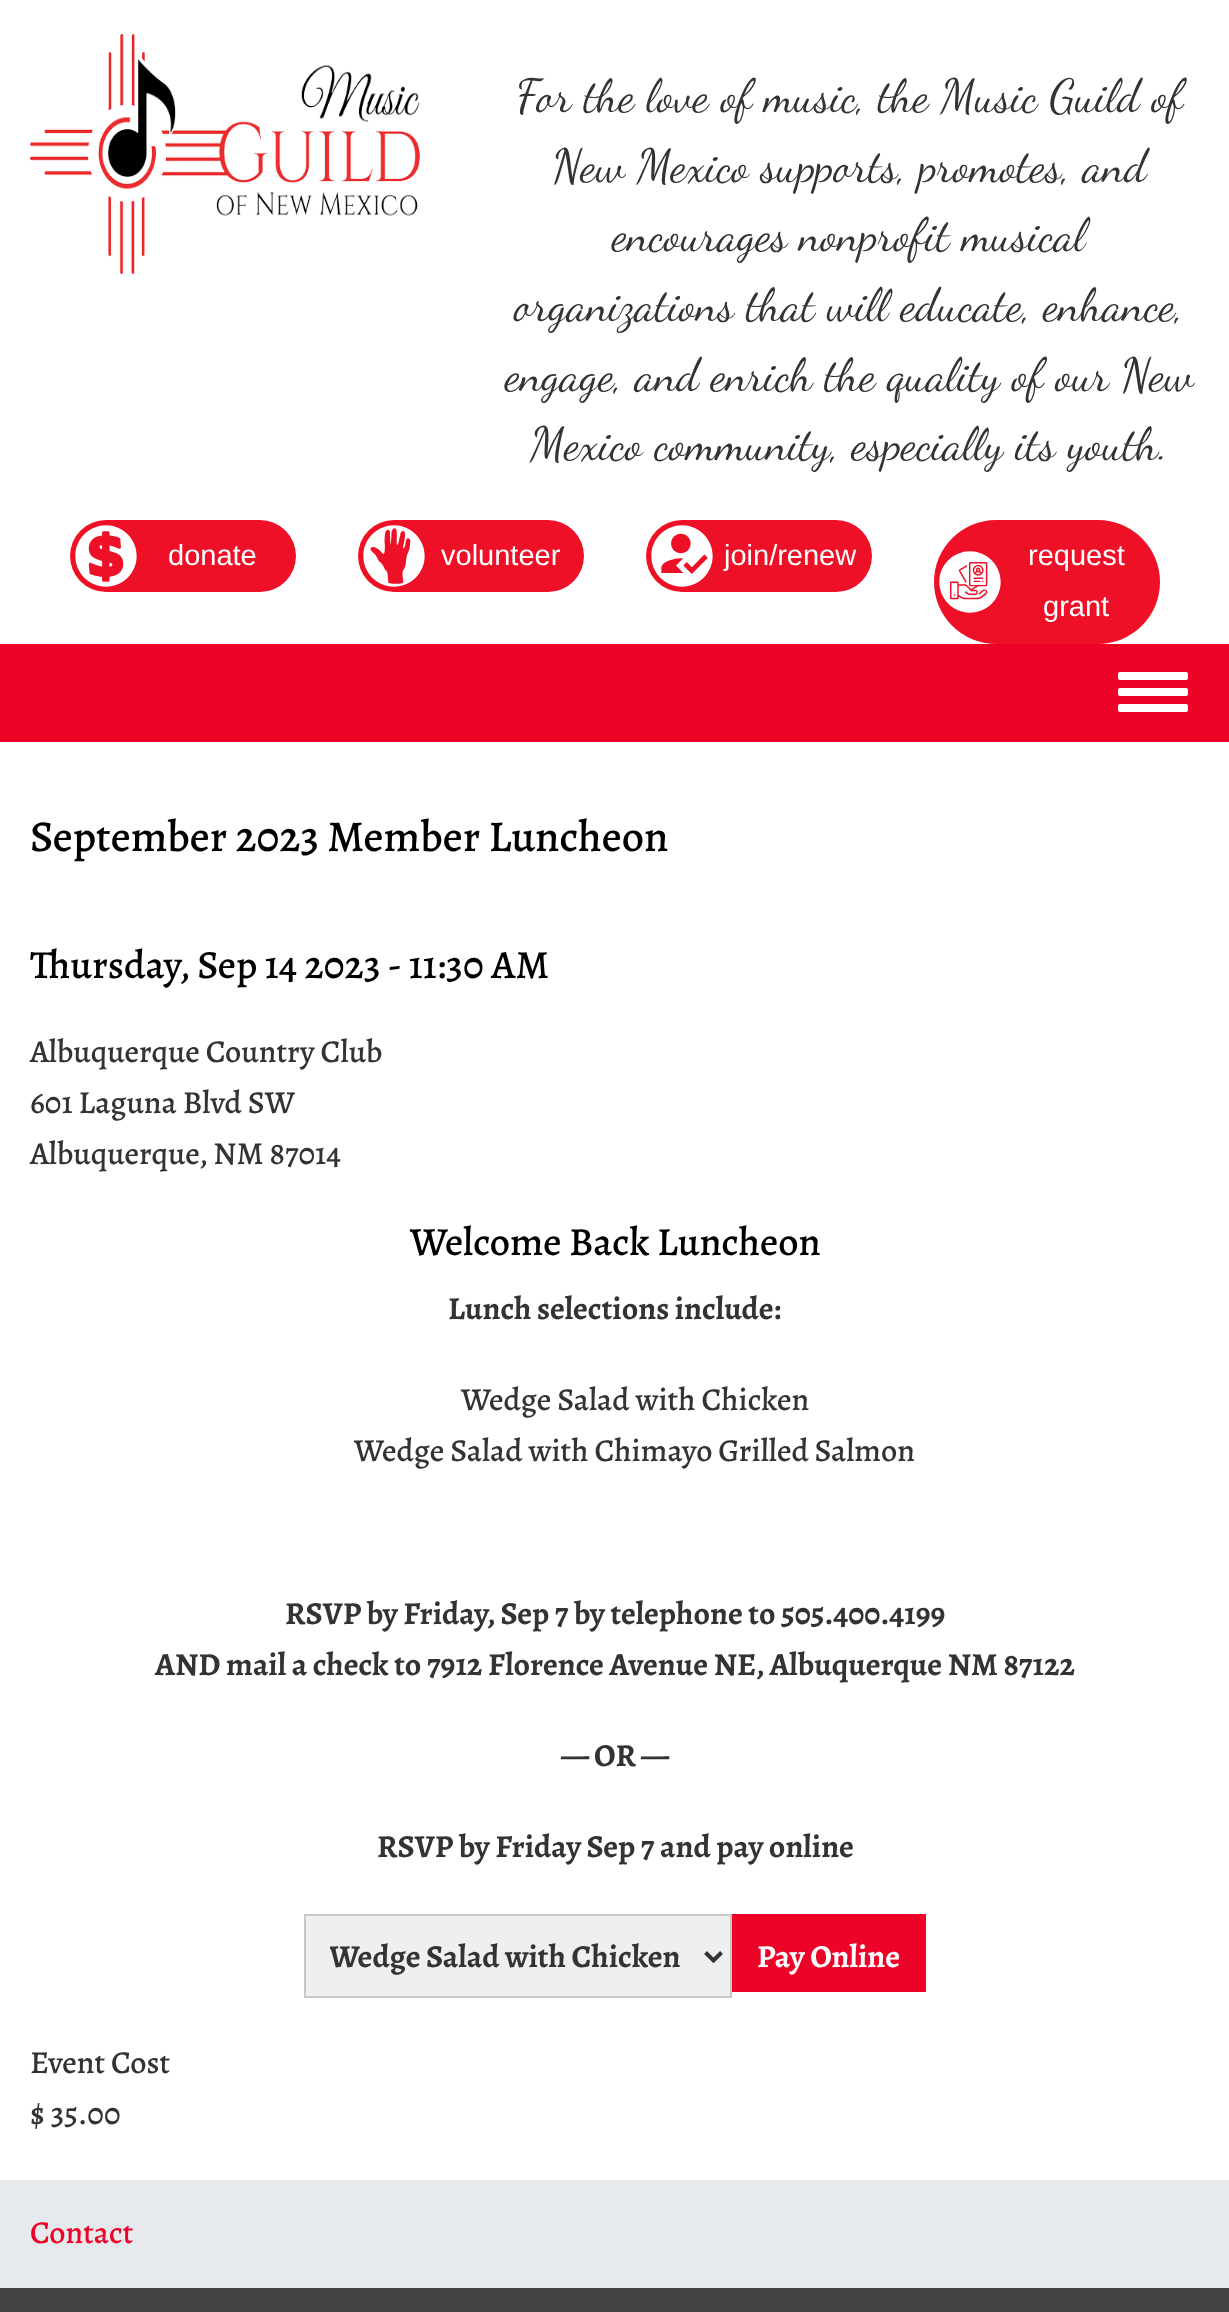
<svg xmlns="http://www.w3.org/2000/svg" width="1229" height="2312">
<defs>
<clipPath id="clip1"><rect x="330" y="1932" width="352" height="48"/></clipPath>
</defs>
<rect width="100%" height="100%" fill="#fff"/>
<text x="516" y="111" style="font-family:Dancing Script;font-size:46.4px;fill:#333">For the love of music, the Music Guild of</text>
<text x="552" y="181" style="font-family:Dancing Script;font-size:46.4px;fill:#333">New Mexico supports, promotes, and</text>
<text x="612" y="250" style="font-family:Dancing Script;font-size:46.4px;fill:#333">encourages nonprofit musical</text>
<text x="514" y="320" style="font-family:Dancing Script;font-size:46.4px;fill:#333">organizations that will educate, enhance,</text>
<text x="505" y="390" style="font-family:Dancing Script;font-size:46.4px;fill:#333">engage, and enrich the quality of our New</text>
<text x="530" y="459" style="font-family:Dancing Script;font-size:46.4px;fill:#333">Mexico community, especially its youth.</text>
<image x="30" y="34" width="390" height="240" href="media/1.png"/>
<rect x="70" y="520" width="226" height="72" rx="36" fill="#ee1027"/>
<image x="75" y="525" width="62" height="62" href="media/2.png"/>
<text x="168" y="565" style="font-family:Liberation Sans;font-size:29px;fill:#fff">donate</text>
<rect x="358" y="520" width="226" height="72" rx="36" fill="#ee1027"/>
<image x="363" y="525" width="62" height="62" href="media/3.png"/>
<text x="441" y="565" style="font-family:Liberation Sans;font-size:29px;fill:#fff">volunteer</text>
<rect x="646" y="520" width="226" height="72" rx="36" fill="#ee1027"/>
<image x="651" y="525" width="62" height="62" href="media/4.png"/>
<text x="724" y="565" style="font-family:Liberation Sans;font-size:29px;fill:#fff">join/renew</text>
<rect x="934" y="520" width="226" height="124" rx="62" fill="#ee1027"/>
<image x="939" y="551" width="62" height="62" href="media/5.png"/>
<text x="1028" y="565" style="font-family:Liberation Sans;font-size:29px;fill:#fff">request</text>
<text x="1043" y="616" style="font-family:Liberation Sans;font-size:29px;fill:#fff">grant</text>
<rect y="644" width="1229" height="98" fill="#ee0328"/>
<rect x="1118" y="672" width="70" height="8" rx="2" fill="#fff"/>
<rect x="1118" y="688" width="70" height="8" rx="2" fill="#fff"/>
<rect x="1118" y="704" width="70" height="8" rx="2" fill="#fff"/>
<text x="30" y="851" style="font-family:Alegreya;font-size:44px;font-weight:500;fill:#000">September 2023 Member Luncheon</text>
<text x="30" y="978" style="font-family:Alegreya;font-size:40px;font-weight:500;fill:#000">Thursday, Sep 14 2023 - 11:30 AM</text>
<text x="30" y="1062" style="font-family:Alegreya;font-size:32px;font-weight:500;fill:#333">Albuquerque Country Club</text>
<text x="30" y="1113" style="font-family:Alegreya;font-size:32px;font-weight:500;fill:#333">601 Laguna Blvd SW</text>
<text x="30" y="1164" style="font-family:Alegreya;font-size:32px;font-weight:500;fill:#333">Albuquerque</text>
<text x="199" y="1164" style="font-family:Alegreya;font-size:32px;font-weight:500;fill:#333">, NM 87014</text>
<text x="410" y="1255" style="font-family:Alegreya;font-size:40px;font-weight:500;fill:#000">Welcome Back Luncheon</text>
<text x="448" y="1319" style="font-family:Alegreya;font-size:32px;font-weight:bold;fill:#333">Lunch selections include:</text>
<text x="461" y="1410" style="font-family:Alegreya;font-size:32px;font-weight:500;fill:#333">Wedge Salad with Chicken</text>
<text x="354" y="1461" style="font-family:Alegreya;font-size:32px;font-weight:500;fill:#333">Wedge Salad with Chimayo Grilled Salmon</text>
<text x="285" y="1624" style="font-family:Alegreya;font-size:32px;font-weight:bold;fill:#333">RSVP by Friday, Sep 7 by telephone to 505.400.4199</text>
<text x="155" y="1675" style="font-family:Alegreya;font-size:32px;font-weight:bold;fill:#333">AND mail a check to 7912 Florence Avenue NE, Albuquerque NM 87122</text>
<text x="561" y="1766" style="font-family:Alegreya;font-size:32px;font-weight:bold;fill:#333">— OR —</text>
<text x="377" y="1857" style="font-family:Alegreya;font-size:32px;font-weight:bold;fill:#333">RSVP by Friday Sep 7 and pay online</text>
<rect x="305" y="1915" width="426" height="82" fill="#efefef" stroke="#c7c7c7" stroke-width="2"/>
<path d="M705.5 1952.5l8 8l8-8" fill="none" stroke="#333" stroke-width="4"/>
<g clip-path="url(#clip1)">
<text x="329" y="1967" style="font-family:Alegreya;font-size:32px;font-weight:bold;fill:#333">Wedge Salad with Chicken</text>
</g>
<rect x="732" y="1914" width="194" height="78" fill="#ee0328"/>
<text x="757" y="1967" style="font-family:Alegreya;font-size:32px;font-weight:bold;fill:#fff">Pay Online</text>
<text x="30" y="2073" style="font-family:Alegreya;font-size:32px;font-weight:500;fill:#333">Event Cost</text>
<text x="30" y="2124" style="font-family:Alegreya;font-size:32px;font-weight:500;fill:#333">$ 35.00</text>
<rect y="2180" width="1229" height="108" fill="#e6eaec"/>
<text x="30" y="2243" style="font-family:Alegreya;font-size:32px;font-weight:500;fill:#ee0328">Contact</text>
<rect y="2288" width="1229" height="24" fill="#444"/>
</svg>
